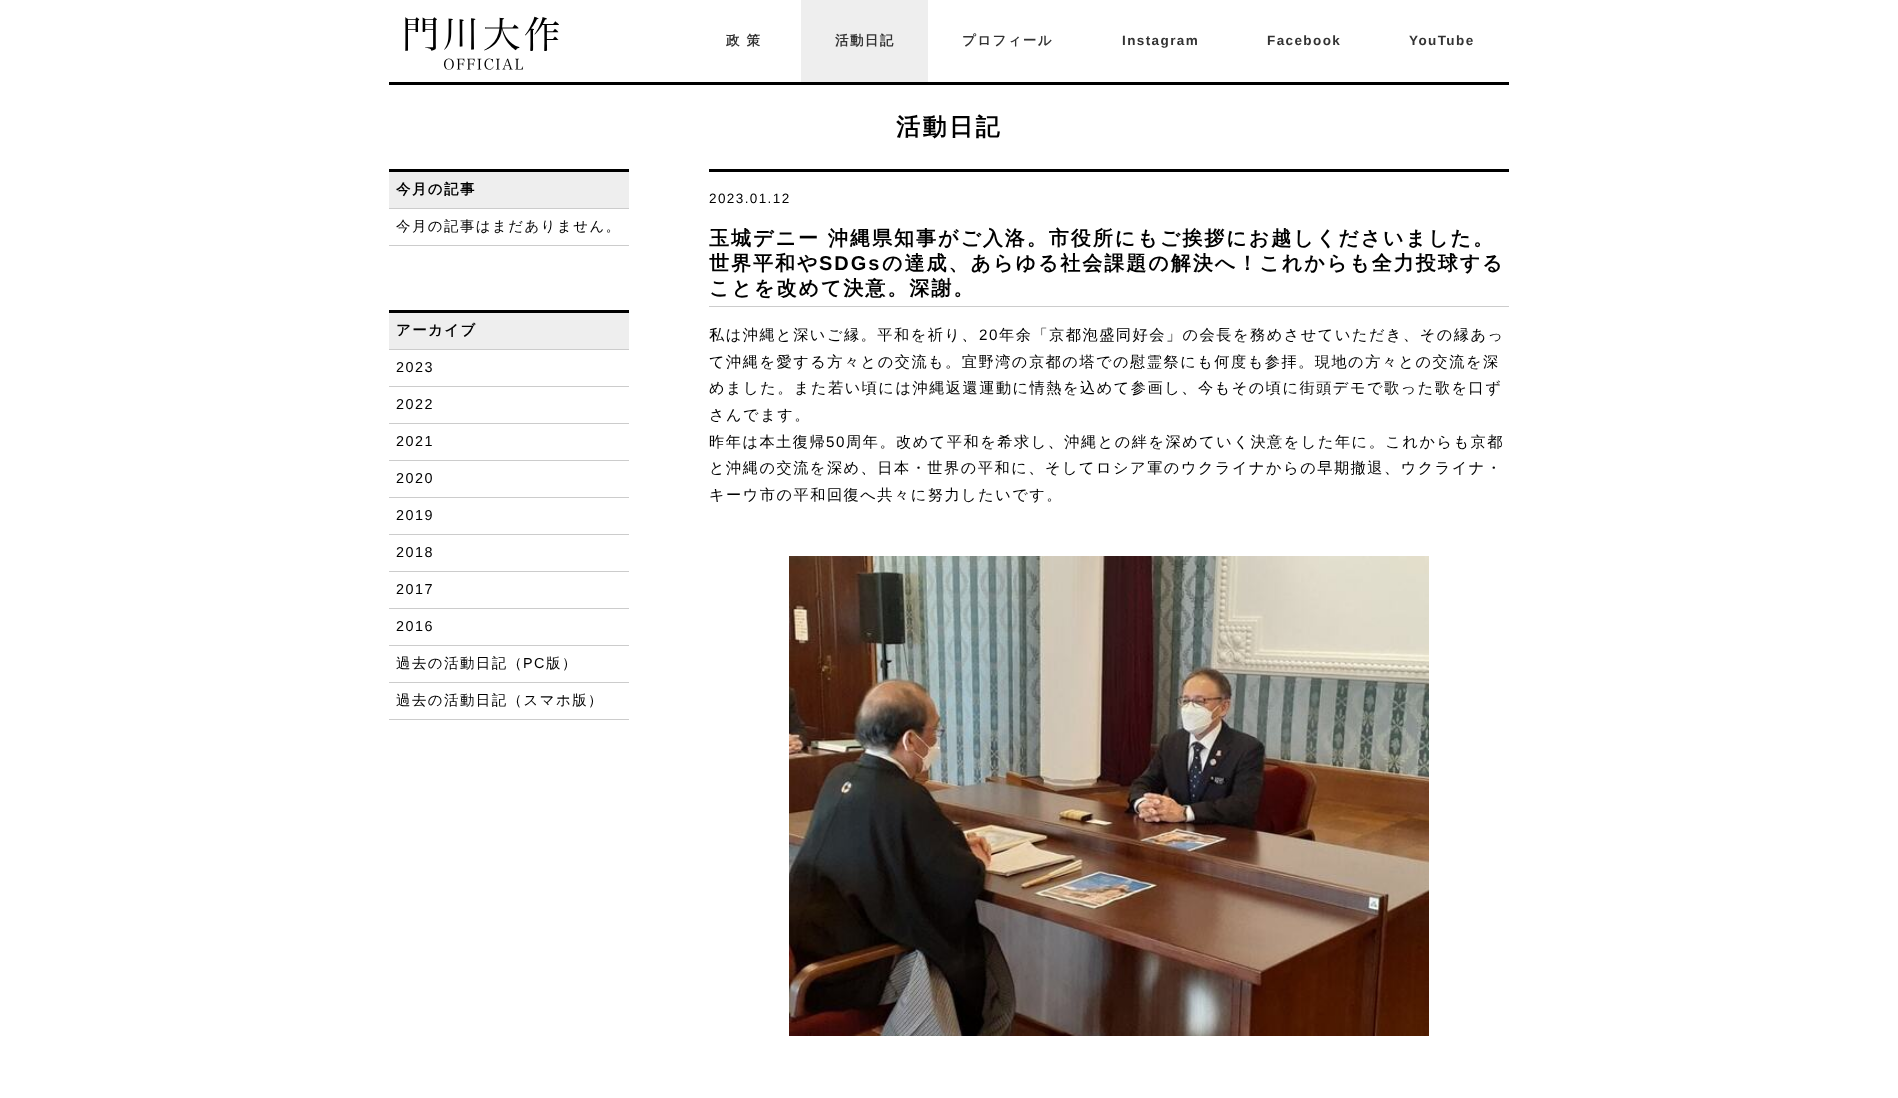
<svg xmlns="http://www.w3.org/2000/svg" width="1898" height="1098">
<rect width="100%" height="100%" fill="#fff"/>
<text x="402" y="48" style="font-family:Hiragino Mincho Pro;font-size:37px;font-weight:300;letter-spacing:3.5px;fill:#000">門川大作</text>
<text x="443" y="70" style="font-family:Hiragino Mincho Pro;font-size:14.75px;font-weight:300;letter-spacing:1.5px;fill:#000">OFFICIAL</text>
<text x="726" y="45" style="font-family:WenQuanYi Zen Hei;font-size:13.5px;font-weight:bold;letter-spacing:7px;fill:#333">政策</text>
<rect x="801" width="127" height="82" fill="#eee"/>
<text x="835" y="45" style="font-family:WenQuanYi Zen Hei;font-size:13.5px;font-weight:bold;letter-spacing:1.4px;fill:#333">活動日記</text>
<text x="962" y="45" style="font-family:WenQuanYi Zen Hei;font-size:13.5px;font-weight:bold;letter-spacing:1.4px;fill:#333">プロフィール</text>
<text x="1122" y="45" style="font-family:Liberation Sans;font-size:13.5px;font-weight:bold;letter-spacing:1.4px;fill:#333">Instagram</text>
<text x="1267" y="45" style="font-family:Liberation Sans;font-size:13.5px;font-weight:bold;letter-spacing:1.4px;fill:#333">Facebook</text>
<text x="1409" y="45" style="font-family:Liberation Sans;font-size:13.5px;font-weight:bold;letter-spacing:1.4px;fill:#333">YouTube</text>
<rect x="389" y="82" width="1120" height="3" fill="#000"/>
<text x="896" y="135" style="font-family:WenQuanYi Zen Hei;font-size:24px;font-weight:bold;letter-spacing:2.5px;fill:#000">活動日記</text>
<rect x="389" y="172" width="240" height="36" fill="#eee"/>
<rect x="389" y="169" width="240" height="3" fill="#000"/>
<rect x="389" y="208" width="240" height="1" fill="#ccc"/>
<text x="396" y="194" style="font-family:WenQuanYi Zen Hei;font-size:14.4px;font-weight:bold;letter-spacing:1.5px;fill:#000">今月の記事</text>
<rect x="389" y="245" width="240" height="1" fill="#ccc"/>
<text x="396" y="231" style="font-family:WenQuanYi Zen Hei;font-size:14.4px;font-weight:500;letter-spacing:1.5px;fill:#000">今月の記事はまだありません。</text>
<rect x="389" y="313" width="240" height="36" fill="#eee"/>
<rect x="389" y="310" width="240" height="3" fill="#000"/>
<rect x="389" y="349" width="240" height="1" fill="#ccc"/>
<text x="396" y="335" style="font-family:WenQuanYi Zen Hei;font-size:14.4px;font-weight:bold;letter-spacing:1.5px;fill:#000">アーカイブ</text>
<rect x="389" y="386" width="240" height="1" fill="#ccc"/>
<text x="396" y="372" style="font-family:Liberation Sans;font-size:14.4px;letter-spacing:1.5px;fill:#000">2023</text>
<rect x="389" y="423" width="240" height="1" fill="#ccc"/>
<text x="396" y="409" style="font-family:Liberation Sans;font-size:14.4px;letter-spacing:1.5px;fill:#000">2022</text>
<rect x="389" y="460" width="240" height="1" fill="#ccc"/>
<text x="396" y="446" style="font-family:Liberation Sans;font-size:14.4px;letter-spacing:1.5px;fill:#000">2021</text>
<rect x="389" y="497" width="240" height="1" fill="#ccc"/>
<text x="396" y="483" style="font-family:Liberation Sans;font-size:14.4px;letter-spacing:1.5px;fill:#000">2020</text>
<rect x="389" y="534" width="240" height="1" fill="#ccc"/>
<text x="396" y="520" style="font-family:Liberation Sans;font-size:14.4px;letter-spacing:1.5px;fill:#000">2019</text>
<rect x="389" y="571" width="240" height="1" fill="#ccc"/>
<text x="396" y="557" style="font-family:Liberation Sans;font-size:14.4px;letter-spacing:1.5px;fill:#000">2018</text>
<rect x="389" y="608" width="240" height="1" fill="#ccc"/>
<text x="396" y="594" style="font-family:Liberation Sans;font-size:14.4px;letter-spacing:1.5px;fill:#000">2017</text>
<rect x="389" y="645" width="240" height="1" fill="#ccc"/>
<text x="396" y="631" style="font-family:Liberation Sans;font-size:14.4px;letter-spacing:1.5px;fill:#000">2016</text>
<rect x="389" y="682" width="240" height="1" fill="#ccc"/>
<text x="396" y="668" style="font-family:WenQuanYi Zen Hei;font-size:14.4px;font-weight:500;letter-spacing:1.5px;fill:#000">過去の活動日記（</text>
<text x="523" y="668" style="font-family:Liberation Sans;font-size:14.4px;letter-spacing:1.5px;fill:#000">PC</text>
<text x="546" y="668" style="font-family:WenQuanYi Zen Hei;font-size:14.4px;font-weight:500;letter-spacing:1.5px;fill:#000">版）</text>
<rect x="389" y="719" width="240" height="1" fill="#ccc"/>
<text x="396" y="705" style="font-family:WenQuanYi Zen Hei;font-size:14.4px;font-weight:500;letter-spacing:1.5px;fill:#000">過去の活動日記（スマホ版）</text>
<rect x="709" y="169" width="800" height="3" fill="#000"/>
<text x="709" y="203" style="font-family:Liberation Sans;font-size:13.5px;letter-spacing:1.4px;fill:#000">2023.01.12</text>
<rect x="709" y="306" width="800" height="1" fill="#ccc"/>
<text x="709" y="245" style="font-family:WenQuanYi Zen Hei;font-size:20px;font-weight:bold;letter-spacing:2px;fill:#000">玉城デニー 沖縄県知事がご入洛。市役所にもご挨拶にお越しくださいました。</text>
<text x="709" y="270" style="font-family:WenQuanYi Zen Hei;font-size:20px;font-weight:bold;letter-spacing:2px;fill:#000">世界平和や</text>
<text x="819" y="270" style="font-family:Liberation Sans;font-size:20px;font-weight:bold;letter-spacing:2px;fill:#000">SDGs</text>
<text x="882" y="270" style="font-family:WenQuanYi Zen Hei;font-size:20px;font-weight:bold;letter-spacing:2px;fill:#000">の達成、あらゆる社会課題の解決へ！これからも全力投球する</text>
<text x="709" y="295" style="font-family:WenQuanYi Zen Hei;font-size:20px;font-weight:bold;letter-spacing:2px;fill:#000">ことを改めて決意。深謝。</text>
<text x="709" y="340" style="font-family:WenQuanYi Zen Hei;font-size:15.2px;font-weight:500;letter-spacing:1.5px;fill:#000">私は沖縄と深いご縁。平和を祈り、</text>
<text x="979" y="340" style="font-family:Liberation Sans;font-size:15.2px;letter-spacing:1.5px;fill:#000">20</text>
<text x="999" y="340" style="font-family:WenQuanYi Zen Hei;font-size:15.2px;font-weight:500;letter-spacing:1.5px;fill:#000">年余「京都泡盛同好会」の会長を務めさせていただき、その縁あっ</text>
<text x="709" y="367" style="font-family:WenQuanYi Zen Hei;font-size:15.2px;font-weight:500;letter-spacing:1.5px;fill:#000">て沖縄を愛する方々との交流も。宜野湾の京都の塔での慰霊祭にも何度も参拝。現地の方々との交流を深</text>
<text x="709" y="393" style="font-family:WenQuanYi Zen Hei;font-size:15.2px;font-weight:500;letter-spacing:1.5px;fill:#000">めました。また若い頃には沖縄返還運動に情熱を込めて参画し、今もその頃に街頭デモで歌った歌を口ず</text>
<text x="709" y="420" style="font-family:WenQuanYi Zen Hei;font-size:15.2px;font-weight:500;letter-spacing:1.5px;fill:#000">さんでます。</text>
<text x="709" y="447" style="font-family:WenQuanYi Zen Hei;font-size:15.2px;font-weight:500;letter-spacing:1.5px;fill:#000">昨年は本土復帰</text>
<text x="826" y="447" style="font-family:Liberation Sans;font-size:15.2px;letter-spacing:1.5px;fill:#000">50</text>
<text x="846" y="447" style="font-family:WenQuanYi Zen Hei;font-size:15.2px;font-weight:500;letter-spacing:1.5px;fill:#000">周年。改めて平和を希求し、沖縄との絆を深めていく決意をした年に。これからも京都</text>
<text x="709" y="473" style="font-family:WenQuanYi Zen Hei;font-size:15.2px;font-weight:500;letter-spacing:1.5px;fill:#000">と沖縄の交流を深め、日本・世界の平和に、そしてロシア軍のウクライナからの早期撤退、ウクライナ・</text>
<text x="709" y="500" style="font-family:WenQuanYi Zen Hei;font-size:15.2px;font-weight:500;letter-spacing:1.5px;fill:#000">キーウ市の平和回復へ共々に努力したいです。</text>
<image x="789" y="556" width="640" height="480" href="media/1.png"/>
</svg>
